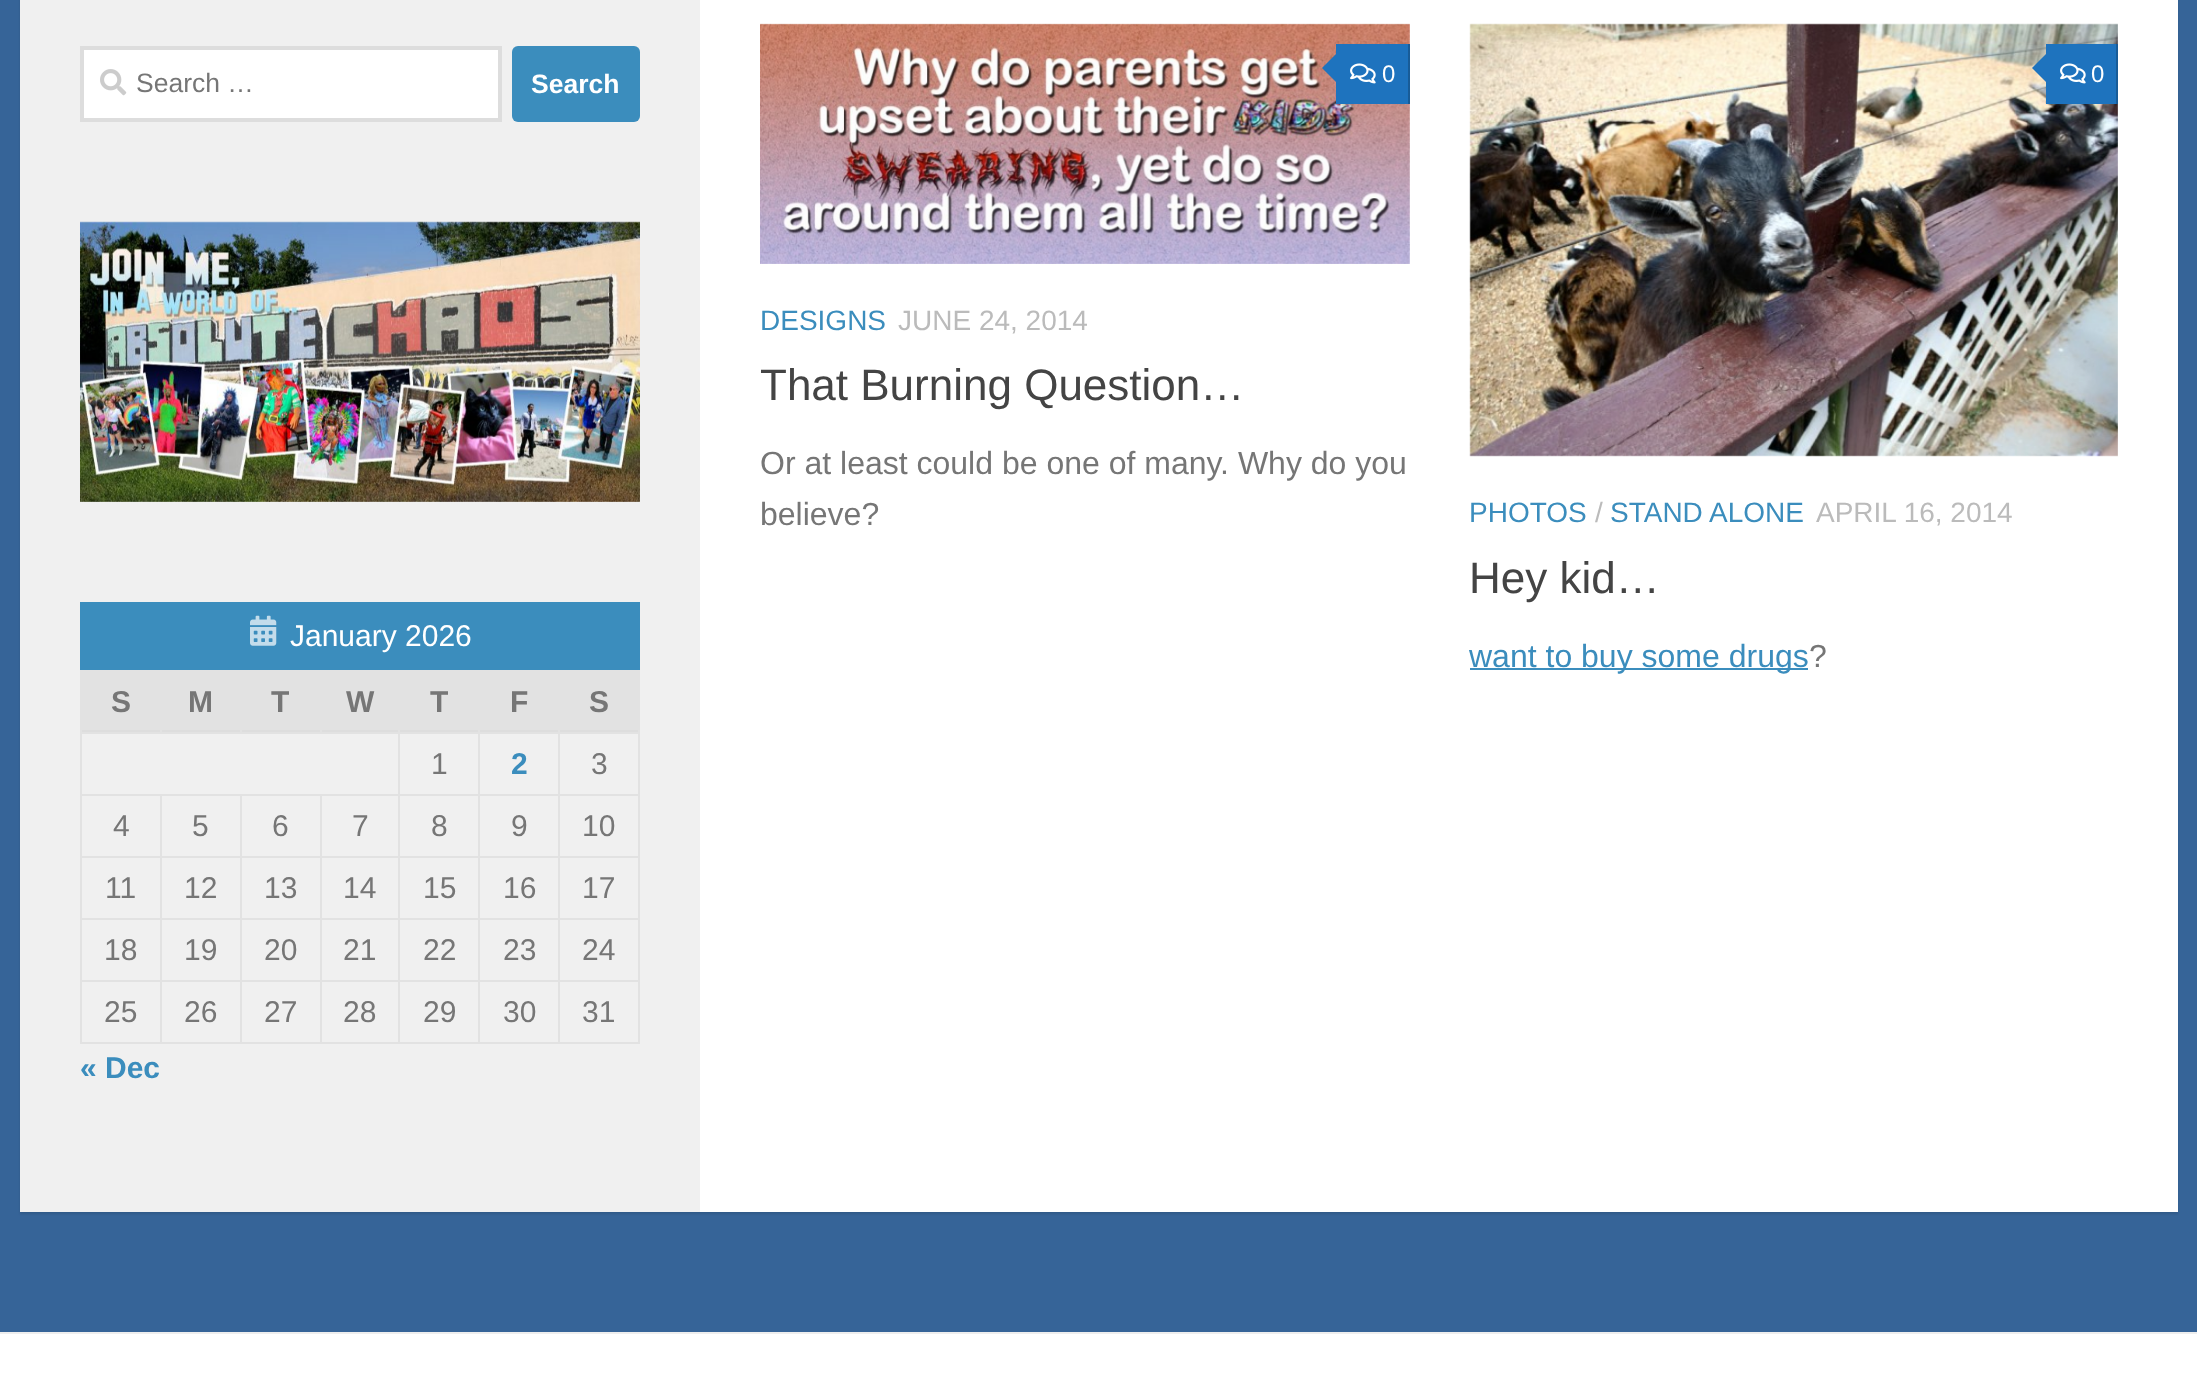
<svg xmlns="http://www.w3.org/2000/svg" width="2197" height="1377">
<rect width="100%" height="100%" fill="#366498"/>
<rect x="20" y="-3" width="2158" height="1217" fill="#0000001a" filter="blur(1px)"/>
<rect x="700" width="1478" height="1212" fill="#fff"/>
<rect x="20" width="680" height="1212" fill="#f0f0f0"/>
<rect x="82" y="48" width="418" height="72" fill="#fff" stroke="#ddd" stroke-width="4"/>
<image x="100" y="69" width="27" height="27" href="media/1.png"/>
<text x="136" y="92" style="font-family:Liberation Sans;font-size:26.5px;fill:#767676">Search …</text>
<rect x="512" y="46" width="128" height="76" rx="6" fill="#3b8dbd"/>
<text x="531" y="93" style="font-family:Liberation Sans;font-size:26.5px;font-weight:bold;fill:#fff">Search</text>
<image x="80" y="221" width="560" height="281" href="media/2.png"/>
<rect x="80" y="602" width="560" height="68" fill="#3b8dbd"/>
<image x="250" y="615" width="27" height="31" href="media/3.png"/>
<text x="290" y="646" style="font-family:Liberation Sans;font-size:30px;fill:#fff">January 2026</text>
<rect x="82" y="670" width="556" height="60" fill="#e2e2e2"/>
<rect x="82" y="730" width="558" height="2" fill="#ddd"/>
<rect x="558" y="732" width="82" height="2" fill="#e2e2e2"/>
<rect x="558" y="794" width="82" height="2" fill="#e2e2e2"/>
<rect x="558" y="856" width="82" height="2" fill="#e2e2e2"/>
<rect x="558" y="918" width="82" height="2" fill="#e2e2e2"/>
<rect x="558" y="980" width="82" height="2" fill="#e2e2e2"/>
<rect x="638" y="980" width="2" height="64" fill="#e2e2e2"/>
<rect x="558" y="1042" width="82" height="2" fill="#e2e2e2"/>
<rect x="558" y="980" width="2" height="64" fill="#e2e2e2"/>
<rect x="478" y="980" width="82" height="2" fill="#e2e2e2"/>
<rect x="558" y="918" width="2" height="64" fill="#e2e2e2"/>
<rect x="478" y="918" width="82" height="2" fill="#e2e2e2"/>
<rect x="558" y="856" width="2" height="64" fill="#e2e2e2"/>
<rect x="478" y="856" width="82" height="2" fill="#e2e2e2"/>
<rect x="558" y="794" width="2" height="64" fill="#e2e2e2"/>
<rect x="478" y="794" width="82" height="2" fill="#e2e2e2"/>
<rect x="558" y="732" width="2" height="64" fill="#e2e2e2"/>
<rect x="478" y="732" width="82" height="2" fill="#e2e2e2"/>
<rect x="478" y="1042" width="82" height="2" fill="#e2e2e2"/>
<rect x="478" y="980" width="2" height="64" fill="#e2e2e2"/>
<rect x="398" y="980" width="82" height="2" fill="#e2e2e2"/>
<rect x="478" y="918" width="2" height="64" fill="#e2e2e2"/>
<rect x="398" y="918" width="82" height="2" fill="#e2e2e2"/>
<rect x="478" y="856" width="2" height="64" fill="#e2e2e2"/>
<rect x="398" y="856" width="82" height="2" fill="#e2e2e2"/>
<rect x="478" y="794" width="2" height="64" fill="#e2e2e2"/>
<rect x="398" y="794" width="82" height="2" fill="#e2e2e2"/>
<rect x="478" y="732" width="2" height="64" fill="#e2e2e2"/>
<rect x="398" y="732" width="82" height="2" fill="#e2e2e2"/>
<rect x="398" y="1042" width="82" height="2" fill="#e2e2e2"/>
<rect x="398" y="980" width="2" height="64" fill="#e2e2e2"/>
<rect x="320" y="980" width="80" height="2" fill="#e2e2e2"/>
<rect x="398" y="918" width="2" height="64" fill="#e2e2e2"/>
<rect x="320" y="918" width="80" height="2" fill="#e2e2e2"/>
<rect x="398" y="856" width="2" height="64" fill="#e2e2e2"/>
<rect x="320" y="856" width="80" height="2" fill="#e2e2e2"/>
<rect x="398" y="794" width="2" height="64" fill="#e2e2e2"/>
<rect x="320" y="794" width="80" height="2" fill="#e2e2e2"/>
<rect x="398" y="732" width="2" height="64" fill="#e2e2e2"/>
<rect x="80" y="732" width="320" height="2" fill="#e2e2e2"/>
<rect x="320" y="1042" width="80" height="2" fill="#e2e2e2"/>
<rect x="320" y="980" width="2" height="64" fill="#e2e2e2"/>
<rect x="240" y="980" width="82" height="2" fill="#e2e2e2"/>
<rect x="320" y="918" width="2" height="64" fill="#e2e2e2"/>
<rect x="240" y="918" width="82" height="2" fill="#e2e2e2"/>
<rect x="320" y="856" width="2" height="64" fill="#e2e2e2"/>
<rect x="240" y="856" width="82" height="2" fill="#e2e2e2"/>
<rect x="320" y="794" width="2" height="64" fill="#e2e2e2"/>
<rect x="240" y="794" width="82" height="2" fill="#e2e2e2"/>
<rect x="240" y="1042" width="82" height="2" fill="#e2e2e2"/>
<rect x="240" y="980" width="2" height="64" fill="#e2e2e2"/>
<rect x="160" y="980" width="82" height="2" fill="#e2e2e2"/>
<rect x="240" y="918" width="2" height="64" fill="#e2e2e2"/>
<rect x="160" y="918" width="82" height="2" fill="#e2e2e2"/>
<rect x="240" y="856" width="2" height="64" fill="#e2e2e2"/>
<rect x="160" y="856" width="82" height="2" fill="#e2e2e2"/>
<rect x="240" y="794" width="2" height="64" fill="#e2e2e2"/>
<rect x="160" y="794" width="82" height="2" fill="#e2e2e2"/>
<rect x="160" y="1042" width="82" height="2" fill="#e2e2e2"/>
<rect x="160" y="980" width="2" height="64" fill="#e2e2e2"/>
<rect x="80" y="980" width="82" height="2" fill="#e2e2e2"/>
<rect x="160" y="918" width="2" height="64" fill="#e2e2e2"/>
<rect x="80" y="918" width="82" height="2" fill="#e2e2e2"/>
<rect x="160" y="856" width="2" height="64" fill="#e2e2e2"/>
<rect x="80" y="856" width="82" height="2" fill="#e2e2e2"/>
<rect x="160" y="794" width="2" height="64" fill="#e2e2e2"/>
<rect x="80" y="794" width="82" height="2" fill="#e2e2e2"/>
<rect x="80" y="1042" width="82" height="2" fill="#e2e2e2"/>
<rect x="80" y="980" width="2" height="64" fill="#e2e2e2"/>
<rect x="80" y="918" width="2" height="64" fill="#e2e2e2"/>
<rect x="80" y="856" width="2" height="64" fill="#e2e2e2"/>
<rect x="80" y="794" width="2" height="64" fill="#e2e2e2"/>
<rect x="80" y="732" width="2" height="64" fill="#e2e2e2"/>
<rect x="80" y="670" width="2" height="64" fill="#e2e2e2"/>
<text x="111" y="712" style="font-family:Liberation Sans;font-size:30px;font-weight:bold;fill:#767676">S</text>
<rect x="160" y="730" width="2" height="4" fill="#e2e2e2"/>
<text x="188" y="712" style="font-family:Liberation Sans;font-size:30px;font-weight:bold;fill:#767676">M</text>
<rect x="240" y="730" width="2" height="4" fill="#e2e2e2"/>
<text x="271" y="712" style="font-family:Liberation Sans;font-size:30px;font-weight:bold;fill:#767676">T</text>
<rect x="320" y="730" width="2" height="4" fill="#e2e2e2"/>
<text x="346" y="712" style="font-family:Liberation Sans;font-size:30px;font-weight:bold;fill:#767676">W</text>
<rect x="398" y="730" width="2" height="4" fill="#e2e2e2"/>
<text x="430" y="712" style="font-family:Liberation Sans;font-size:30px;font-weight:bold;fill:#767676">T</text>
<rect x="478" y="730" width="2" height="4" fill="#e2e2e2"/>
<text x="510" y="712" style="font-family:Liberation Sans;font-size:30px;font-weight:bold;fill:#767676">F</text>
<rect x="558" y="730" width="2" height="4" fill="#e2e2e2"/>
<text x="589" y="712" style="font-family:Liberation Sans;font-size:30px;font-weight:bold;fill:#767676">S</text>
<text x="431" y="774" style="font-family:Liberation Sans;font-size:30px;fill:#767676">1</text>
<text x="511" y="774" style="font-family:Liberation Sans;font-size:30px;font-weight:bold;fill:#3b8dbd">2</text>
<rect x="638" y="918" width="2" height="64" fill="#e2e2e2"/>
<rect x="638" y="856" width="2" height="64" fill="#e2e2e2"/>
<rect x="638" y="794" width="2" height="64" fill="#e2e2e2"/>
<rect x="638" y="670" width="2" height="126" fill="#e2e2e2"/>
<text x="591" y="774" style="font-family:Liberation Sans;font-size:30px;fill:#767676">3</text>
<text x="113" y="836" style="font-family:Liberation Sans;font-size:30px;fill:#767676">4</text>
<text x="192" y="836" style="font-family:Liberation Sans;font-size:30px;fill:#767676">5</text>
<text x="272" y="836" style="font-family:Liberation Sans;font-size:30px;fill:#767676">6</text>
<text x="352" y="836" style="font-family:Liberation Sans;font-size:30px;fill:#767676">7</text>
<text x="431" y="836" style="font-family:Liberation Sans;font-size:30px;fill:#767676">8</text>
<text x="511" y="836" style="font-family:Liberation Sans;font-size:30px;fill:#767676">9</text>
<text x="582" y="836" style="font-family:Liberation Sans;font-size:30px;fill:#767676">10</text>
<text x="105" y="898" style="font-family:Liberation Sans;font-size:30px;fill:#767676">11</text>
<text x="184" y="898" style="font-family:Liberation Sans;font-size:30px;fill:#767676">12</text>
<text x="264" y="898" style="font-family:Liberation Sans;font-size:30px;fill:#767676">13</text>
<text x="343" y="898" style="font-family:Liberation Sans;font-size:30px;fill:#767676">14</text>
<text x="423" y="898" style="font-family:Liberation Sans;font-size:30px;fill:#767676">15</text>
<text x="503" y="898" style="font-family:Liberation Sans;font-size:30px;fill:#767676">16</text>
<text x="582" y="898" style="font-family:Liberation Sans;font-size:30px;fill:#767676">17</text>
<text x="104" y="960" style="font-family:Liberation Sans;font-size:30px;fill:#767676">18</text>
<text x="184" y="960" style="font-family:Liberation Sans;font-size:30px;fill:#767676">19</text>
<text x="264" y="960" style="font-family:Liberation Sans;font-size:30px;fill:#767676">20</text>
<text x="343" y="960" style="font-family:Liberation Sans;font-size:30px;fill:#767676">21</text>
<text x="423" y="960" style="font-family:Liberation Sans;font-size:30px;fill:#767676">22</text>
<text x="503" y="960" style="font-family:Liberation Sans;font-size:30px;fill:#767676">23</text>
<text x="582" y="960" style="font-family:Liberation Sans;font-size:30px;fill:#767676">24</text>
<text x="104" y="1022" style="font-family:Liberation Sans;font-size:30px;fill:#767676">25</text>
<text x="184" y="1022" style="font-family:Liberation Sans;font-size:30px;fill:#767676">26</text>
<text x="264" y="1022" style="font-family:Liberation Sans;font-size:30px;fill:#767676">27</text>
<text x="343" y="1022" style="font-family:Liberation Sans;font-size:30px;fill:#767676">28</text>
<text x="423" y="1022" style="font-family:Liberation Sans;font-size:30px;fill:#767676">29</text>
<text x="503" y="1022" style="font-family:Liberation Sans;font-size:30px;fill:#767676">30</text>
<text x="582" y="1022" style="font-family:Liberation Sans;font-size:30px;fill:#767676">31</text>
<text x="80" y="1078" style="font-family:Liberation Sans;font-size:30px;font-weight:bold;fill:#3b8dbd">« Dec</text>
<image x="760" y="23" width="650" height="241" href="media/4.png"/>
<rect x="1336" y="44" width="72" height="60" fill="#1e73be"/>
<rect x="1408" y="44" width="2" height="60" fill="#185c98"/>
<path d="M1340 50v36l-18-18z" fill="#1e73be"/>
<image x="1350" y="63" width="26" height="21" href="media/5.png"/>
<text x="1382" y="82" style="font-family:Liberation Sans;font-size:24px;fill:#fff">0</text>
<text x="760" y="330" style="font-family:Liberation Sans;font-size:28px;fill:#3b8dbd">DESIGNS</text>
<text x="898" y="330" style="font-family:Liberation Sans;font-size:28px;fill:#bbb">JUNE 24, 2014</text>
<text x="760" y="400" style="font-family:Liberation Sans;font-size:44px;fill:#444">That Burning Question…</text>
<text x="760" y="474" style="font-family:Liberation Sans;font-size:32px;fill:#767676">Or at least could be one of many. Why do you</text>
<text x="760" y="525" style="font-family:Liberation Sans;font-size:32px;fill:#767676">believe?</text>
<image x="1469" y="23" width="649" height="434" href="media/6.png"/>
<rect x="2046" y="44" width="70" height="60" fill="#1e73be"/>
<rect x="2116" y="44" width="2" height="60" fill="#185c98"/>
<path d="M2050 50v36l-18-18z" fill="#1e73be"/>
<image x="2060" y="63" width="26" height="21" href="media/5.png"/>
<text x="2091" y="82" style="font-family:Liberation Sans;font-size:24px;fill:#fff">0</text>
<text x="1469" y="522" style="font-family:Liberation Sans;font-size:28px;fill:#3b8dbd">PHOTOS</text>
<text x="1595" y="522" style="font-family:Liberation Sans;font-size:28px;fill:#bbb">/</text>
<text x="1610" y="522" style="font-family:Liberation Sans;font-size:28px;fill:#3b8dbd">STAND ALONE</text>
<text x="1816" y="522" style="font-family:Liberation Sans;font-size:28px;fill:#bbb">APRIL 16, 2014</text>
<text x="1469" y="593" style="font-family:Liberation Sans;font-size:44px;fill:#444">Hey kid…</text>
<rect x="1470" y="668" width="338" height="2" fill="#3b8dbd"/>
<text x="1469" y="667" style="font-family:Liberation Sans;font-size:32px;fill:#3b8dbd">want to buy some drugs</text>
<text x="1809" y="667" style="font-family:Liberation Sans;font-size:32px;fill:#767676">?</text>
<rect y="1334" width="2197" height="43" fill="#fff"/>
<rect y="1332" width="2197" height="2" fill="#eee"/>
</svg>
